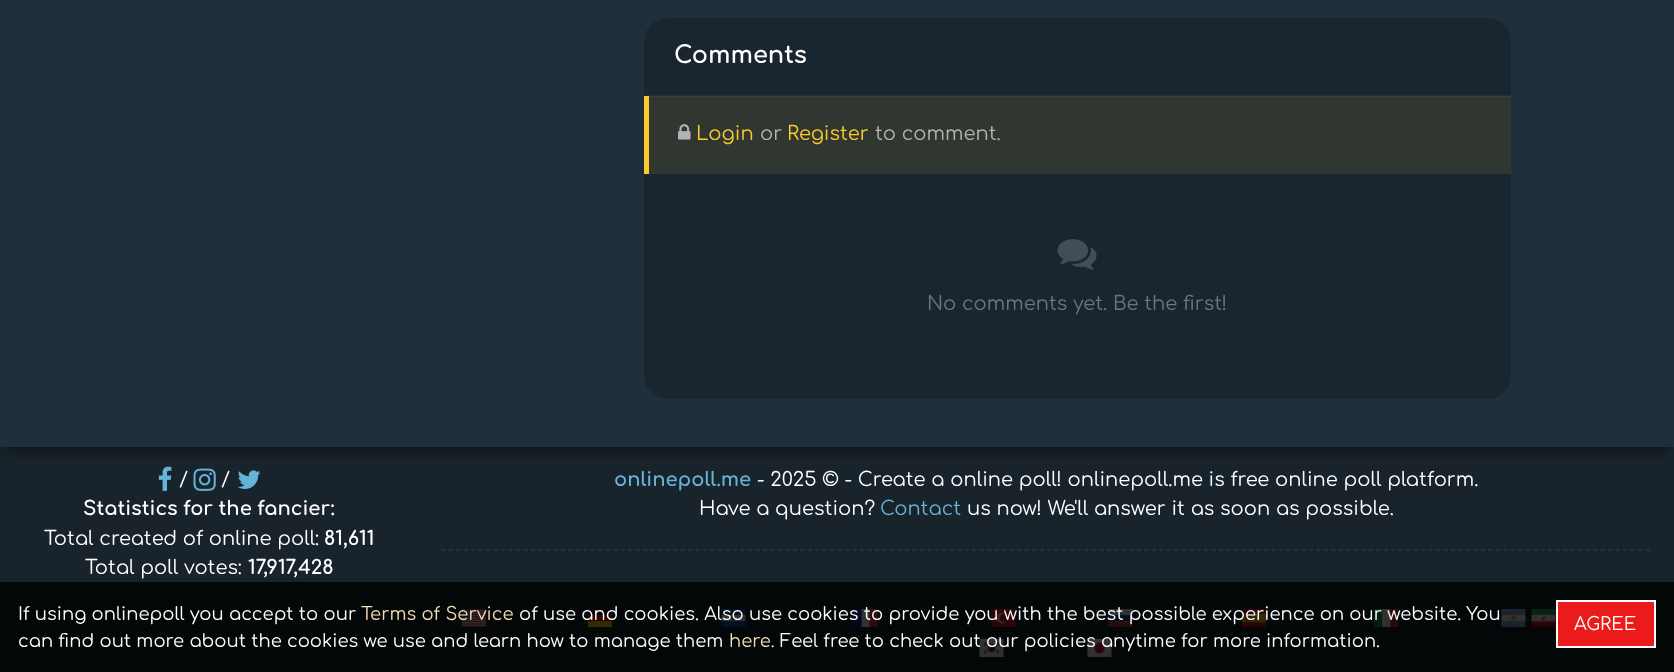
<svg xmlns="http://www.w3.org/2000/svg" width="1674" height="672">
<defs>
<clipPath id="clip1"><rect x="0" y="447" width="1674" height="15"/></clipPath>
</defs>
<rect width="100%" height="100%" fill="#1f2f3c"/>
<rect y="447" width="1674" height="225" fill="#18232b"/>
<image x="158" y="466" width="14" height="25" href="media/3.png"/>
<image x="193" y="468" width="23" height="23" href="media/4.png"/>
<image x="237" y="470" width="24" height="19" href="media/5.png"/>
<g clip-path="url(#clip1)">
<rect x="8" y="-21" width="1659" height="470" fill="#0000008f" filter="blur(7px)"/>
</g>
<rect x="644" y="18" width="867" height="381" rx="24" fill="#192630"/>
<rect x="649" y="97" width="862" height="77" fill="#303730"/>
<rect x="644" y="95" width="867" height="1" fill="#1f2f3c"/>
<rect x="644" y="96" width="867" height="1" fill="#353f3b"/>
<text x="674" y="63" style="font-family:Comfortaa;font-size:24px;font-weight:bold;fill:#fff">Comments</text>
<rect x="644" y="96" width="5" height="78" fill="#fccc2e"/>
<image x="678" y="124" width="13" height="16" href="media/1.png"/>
<text x="696" y="140" style="font-family:Comfortaa;font-size:19.5px;fill:#fccc2e">Login</text>
<text x="760" y="140" style="font-family:Comfortaa;font-size:19.5px;fill:#b1b3b5">or</text>
<text x="787" y="140" style="font-family:Comfortaa;font-size:19.5px;fill:#fccc2e">Register</text>
<text x="875" y="140" style="font-family:Comfortaa;font-size:19.5px;fill:#b1b3b5">to comment.</text>
<image x="1057" y="239" width="40" height="31" href="media/2.png"/>
<text x="927" y="310" style="font-family:Comfortaa;font-size:19.5px;fill:#6c757d">No comments yet. Be the first!</text>
<text x="179" y="486" style="font-family:Comfortaa;font-size:19.5px;fill:#fff">/</text>
<text x="221" y="486" style="font-family:Comfortaa;font-size:19.5px;fill:#fff">/</text>
<text x="83" y="515" style="font-family:Comfortaa;font-size:19.5px;font-weight:bold;fill:#fff">Statistics for the fancier:</text>
<text x="44" y="545" style="font-family:Comfortaa;font-size:19.5px;fill:#fff">Total created of online poll:</text>
<text x="324" y="545" style="font-family:Comfortaa;font-size:19.5px;font-weight:bold;fill:#fff">81,611</text>
<text x="85" y="574" style="font-family:Comfortaa;font-size:19.5px;fill:#fff">Total poll votes:</text>
<text x="248" y="574" style="font-family:Comfortaa;font-size:19.5px;font-weight:bold;fill:#fff">17,917,428</text>
<text x="614" y="486" style="font-family:Comfortaa;font-size:19.5px;font-weight:bold;fill:#65b3d6">onlinepoll.me</text>
<text x="757" y="486" style="font-family:Comfortaa;font-size:19.5px;fill:#fff">- 2025 © - Create a online poll! onlinepoll.me is free online poll platform.</text>
<text x="699" y="515" style="font-family:Comfortaa;font-size:19.5px;fill:#fff">Have a question?</text>
<text x="880" y="515" style="font-family:Comfortaa;font-size:19.5px;fill:#65b3d6">Contact</text>
<text x="967" y="515" style="font-family:Comfortaa;font-size:19.5px;fill:#fff">us now! We'll answer it as soon as possible.</text>
<path d="M441 550h1210.5" fill="none" stroke="#2f3940" stroke-width="1.5" stroke-dasharray="4.5 2.98"/>
<image x="462" y="609" width="24" height="18" href="media/6.png"/>
<image x="588" y="609" width="24" height="18" href="media/7.png"/>
<image x="721" y="609" width="25" height="18" href="media/8.png"/>
<image x="853" y="609" width="25" height="18" href="media/9.png"/>
<image x="991" y="609" width="25" height="18" href="media/10.png"/>
<image x="1108" y="609" width="25" height="18" href="media/11.png"/>
<image x="1242" y="609" width="24" height="18" href="media/12.png"/>
<image x="1374" y="609" width="24" height="18" href="media/13.png"/>
<image x="1501" y="609" width="25" height="18" href="media/14.png"/>
<image x="1531" y="609" width="25" height="18" href="media/15.png"/>
<image x="979" y="639" width="25" height="18" href="media/16.png"/>
<image x="1087" y="639" width="25" height="18" href="media/17.png"/>
<rect y="582" width="1674" height="90" fill="#000000cc"/>
<text x="18" y="620" style="font-family:Comfortaa;font-size:18px;fill:#fff">If using onlinepoll you accept to our</text>
<text x="361" y="620" style="font-family:Comfortaa;font-size:18px;fill:#f5deb3">Terms of Service</text>
<text x="519" y="620" style="font-family:Comfortaa;font-size:18px;fill:#fff">of use and cookies. Also use cookies to provide you with the best possible experience on our website. You</text>
<text x="18" y="647" style="font-family:Comfortaa;font-size:18px;fill:#fff">can find out more about the cookies we use and learn how to manage them</text>
<text x="729" y="647" style="font-family:Comfortaa;font-size:18px;fill:#f5deb3">here.</text>
<text x="780" y="647" style="font-family:Comfortaa;font-size:18px;fill:#fff">Feel free to check out our policies anytime for more information.</text>
<rect x="1557" y="601" width="98" height="46" fill="#ec1b1b" stroke="#fff" stroke-width="2"/>
<text x="1574" y="630" style="font-family:Comfortaa;font-size:18px;fill:#fff">AGREE</text>
</svg>
